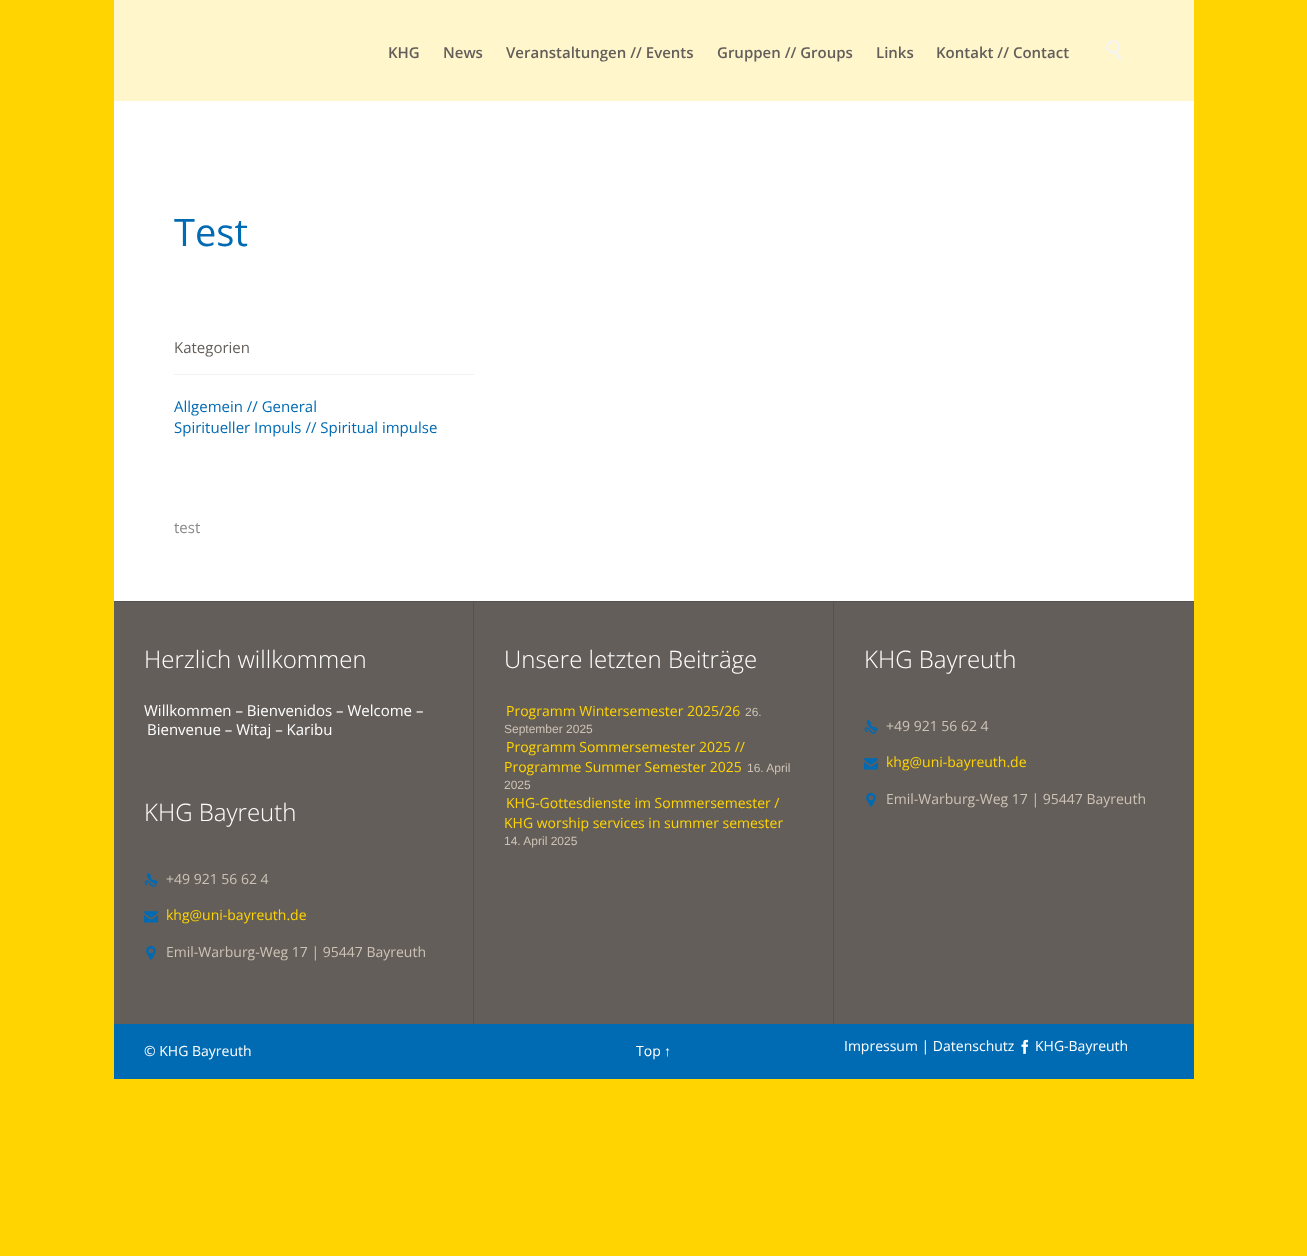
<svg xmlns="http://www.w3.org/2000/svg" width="1307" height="1256">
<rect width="100%" height="100%" fill="#ffd400"/>
<rect x="114" width="1080" height="101" fill="#fff6cc"/>
<text x="388" y="58" style="font-family:Open Sans;font-size:15px;font-weight:600;fill:#635e59">KHG</text>
<text x="443" y="58" style="font-family:Open Sans;font-size:15px;font-weight:600;fill:#635e59">News</text>
<text x="506" y="58" style="font-family:Open Sans;font-size:15px;font-weight:600;fill:#635e59">Veranstaltungen // Events</text>
<text x="717" y="58" style="font-family:Open Sans;font-size:15px;font-weight:600;fill:#635e59">Gruppen // Groups</text>
<text x="876" y="58" style="font-family:Open Sans;font-size:15px;font-weight:600;fill:#635e59">Links</text>
<text x="936" y="58" style="font-family:Open Sans;font-size:15px;font-weight:600;fill:#635e59">Kontakt // Contact</text>
<image x="1106" y="40" width="16" height="21" href="media/1.png"/>
<rect x="114" y="101" width="1080" height="500" fill="#fff"/>
<text x="174" y="246" style="font-family:Open Sans;font-size:38px;fill:#006ab3">Test</text>
<rect x="174" y="374" width="300" height="1" fill="#f4f0f0"/>
<text x="174" y="353" style="font-family:Open Sans;font-size:15px;fill:#635e59">Kategorien</text>
<text x="174" y="412" style="font-family:Open Sans;font-size:15px;fill:#006ab3">Allgemein // General</text>
<text x="174" y="433" style="font-family:Open Sans;font-size:15px;fill:#006ab3">Spiritueller Impuls // Spiritual impulse</text>
<text x="174" y="533" style="font-family:Open Sans;font-size:15px;fill:#898989">test</text>
<rect x="114" y="602" width="1080" height="422" fill="#635e59"/>
<rect x="114" y="601" width="1080" height="1" fill="#56514d"/>
<rect x="473" y="602" width="1" height="422" fill="#56514d"/>
<text x="144" y="668" style="font-family:Open Sans;font-size:24px;font-weight:300;fill:#fff">Herzlich willkommen</text>
<text x="144" y="716" style="font-family:Open Sans;font-size:15px;fill:#fff">Willkommen – Bienvenidos – Welcome –</text>
<text x="147" y="735" style="font-family:Open Sans;font-size:15px;fill:#fff">Bienvenue – Witaj – Karibu</text>
<text x="144" y="821" style="font-family:Open Sans;font-size:24px;font-weight:300;fill:#fff">KHG Bayreuth</text>
<image x="144" y="873" width="14" height="14" href="media/2.png"/>
<text x="166" y="884" style="font-family:Open Sans;font-size:14px;fill:#cdc2b6">+49 921 56 62 4</text>
<image x="144" y="911" width="14" height="12" href="media/3.png"/>
<text x="166" y="920" style="font-family:Open Sans;font-size:14px;fill:#ffd400">khg@uni-bayreuth.de</text>
<image x="146" y="945" width="10" height="15" href="media/4.png"/>
<text x="166" y="957" style="font-family:Open Sans;font-size:14px;fill:#cdc2b6">Emil-Warburg-Weg 17 | 95447 Bayreuth</text>
<rect x="833" y="602" width="1" height="422" fill="#56514d"/>
<text x="504" y="668" style="font-family:Open Sans;font-size:24px;font-weight:300;fill:#fff">Unsere letzten Beiträge</text>
<text x="506" y="716" style="font-family:Open Sans;font-size:14px;fill:#ffd400">Programm Wintersemester 2025/26</text>
<text x="745" y="716" style="font-family:Liberation Sans;font-size:12px;fill:#cdc2b6">26.</text>
<text x="504" y="733" style="font-family:Liberation Sans;font-size:12px;fill:#cdc2b6">September 2025</text>
<text x="506" y="752" style="font-family:Open Sans;font-size:14px;fill:#ffd400">Programm Sommersemester 2025 //</text>
<text x="504" y="772" style="font-family:Open Sans;font-size:14px;fill:#ffd400">Programme Summer Semester 2025</text>
<text x="747" y="772" style="font-family:Liberation Sans;font-size:12px;fill:#cdc2b6">16. April</text>
<text x="504" y="789" style="font-family:Liberation Sans;font-size:12px;fill:#cdc2b6">2025</text>
<text x="506" y="808" style="font-family:Open Sans;font-size:14px;fill:#ffd400">KHG-Gottesdienste im Sommersemester /</text>
<text x="504" y="828" style="font-family:Open Sans;font-size:14px;fill:#ffd400">KHG worship services in summer semester</text>
<text x="504" y="845" style="font-family:Liberation Sans;font-size:12px;fill:#cdc2b6">14. April 2025</text>
<text x="864" y="668" style="font-family:Open Sans;font-size:24px;font-weight:300;fill:#fff">KHG Bayreuth</text>
<image x="864" y="720" width="14" height="14" href="media/2.png"/>
<text x="886" y="731" style="font-family:Open Sans;font-size:14px;fill:#cdc2b6">+49 921 56 62 4</text>
<image x="864" y="758" width="14" height="12" href="media/3.png"/>
<text x="886" y="767" style="font-family:Open Sans;font-size:14px;fill:#ffd400">khg@uni-bayreuth.de</text>
<image x="866" y="792" width="10" height="15" href="media/4.png"/>
<text x="886" y="804" style="font-family:Open Sans;font-size:14px;fill:#cdc2b6">Emil-Warburg-Weg 17 | 95447 Bayreuth</text>
<rect x="114" y="1024" width="1080" height="55" fill="#006ab3"/>
<text x="144" y="1056" style="font-family:Open Sans;font-size:14px;fill:#fff">© KHG Bayreuth</text>
<text x="636" y="1056" style="font-family:Open Sans;font-size:14px;fill:#fff">Top</text>
<text x="664" y="1056" style="font-family:Liberation Serif;font-size:14px;fill:#fff">↑</text>
<text x="844" y="1051" style="font-family:Open Sans;font-size:14px;fill:#fff">Impressum | Datenschutz</text>
<image x="1021" y="1039" width="8" height="15" href="media/5.png"/>
<text x="1035" y="1051" style="font-family:Open Sans;font-size:14px;fill:#fff">KHG-Bayreuth</text>
</svg>
